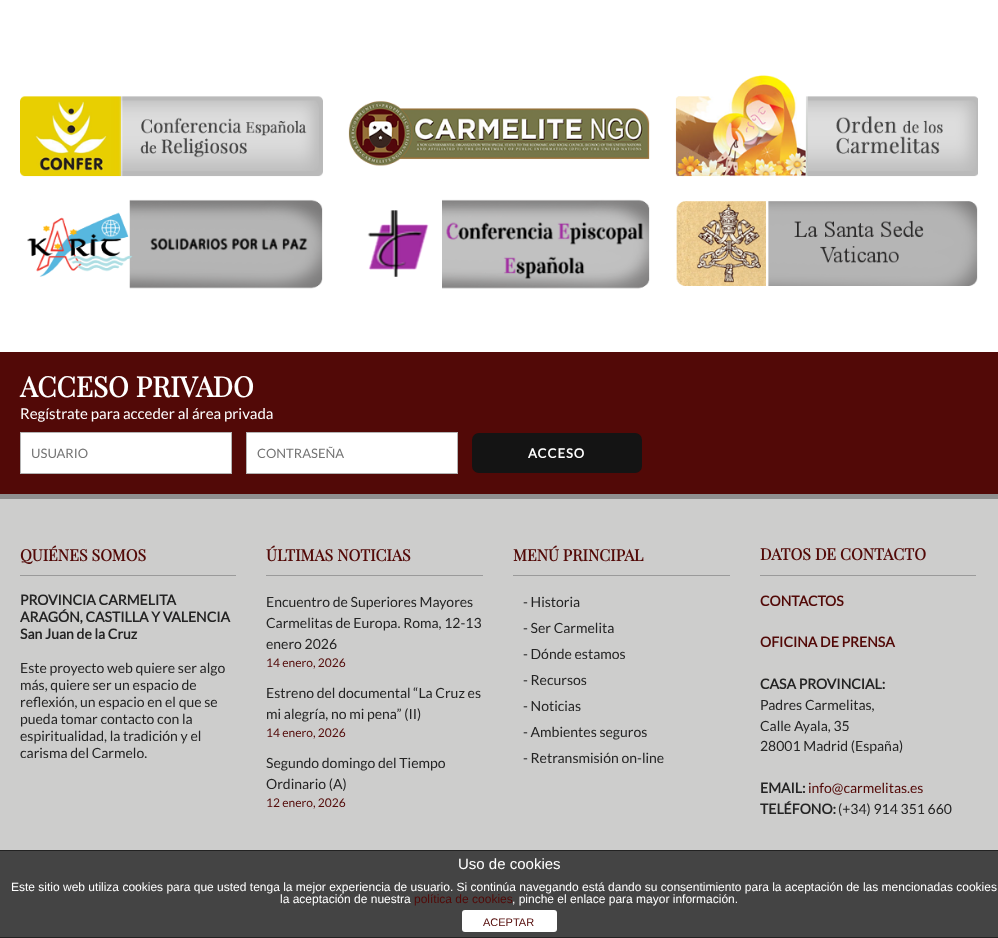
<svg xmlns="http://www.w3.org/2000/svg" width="998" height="938">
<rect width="100%" height="100%" fill="#fff"/>
<image x="20" y="96" width="303" height="81" href="media/1.png"/>
<image x="348" y="101" width="302" height="65" href="media/2.png"/>
<image x="675" y="75" width="303" height="102" href="media/3.png"/>
<image x="27" y="199" width="296" height="90" href="media/4.png"/>
<image x="367" y="199" width="283" height="90" href="media/5.png"/>
<image x="676" y="201" width="302" height="85" href="media/6.png"/>
<rect y="352" width="998" height="142" fill="#520907"/>
<text x="20" y="397" style="font-family:Playfair Display;font-size:28px;font-weight:bold;fill:#fff">ACCESO PRIVADO</text>
<text x="20" y="419" style="font-family:Lato;font-size:15px;fill:#fff">Regístrate para acceder al área privada</text>
<rect x="20.5" y="432.5" width="211" height="41" fill="#fff" stroke="#b3b3b3"/>
<text x="31" y="458" style="font-family:Lato;font-size:13px;fill:#757575">USUARIO</text>
<rect x="246.5" y="432.5" width="211" height="41" fill="#fff" stroke="#b3b3b3"/>
<text x="257" y="458" style="font-family:Lato;font-size:13px;fill:#757575">CONTRASEÑA</text>
<rect x="472" y="433" width="170" height="40" rx="7" fill="#141414"/>
<text x="528" y="458" style="font-family:Lato;font-size:13px;font-weight:bold;letter-spacing:1px;fill:#fff">ACCESO</text>
<rect y="494" width="998" height="5" fill="#8f8f8f"/>
<rect y="499" width="998" height="351" fill="#cdcdcc"/>
<text x="20" y="561" style="font-family:Playfair Display;font-size:16px;font-weight:bold;fill:#520907">QUIÉNES SOMOS</text>
<rect x="20" y="575" width="216" height="1" fill="#9a9a9a"/>
<text x="20" y="605" style="font-family:Lato;font-size:14px;font-weight:bold;fill:#242424">PROVINCIA CARMELITA</text>
<text x="20" y="622" style="font-family:Lato;font-size:14px;font-weight:bold;fill:#242424">ARAGÓN, CASTILLA Y VALENCIA</text>
<text x="20" y="639" style="font-family:Lato;font-size:14px;font-weight:bold;fill:#242424">San Juan de la Cruz</text>
<text x="20" y="673" style="font-family:Lato;font-size:14px;fill:#242424">Este proyecto web quiere ser algo</text>
<text x="20" y="690" style="font-family:Lato;font-size:14px;fill:#242424">más, quiere ser un espacio de</text>
<text x="20" y="707" style="font-family:Lato;font-size:14px;fill:#242424">reflexión, un espacio en el que se</text>
<text x="20" y="724" style="font-family:Lato;font-size:14px;fill:#242424">pueda tomar contacto con la</text>
<text x="20" y="741" style="font-family:Lato;font-size:14px;fill:#242424">espiritualidad, la tradición y el</text>
<text x="20" y="758" style="font-family:Lato;font-size:14px;fill:#242424">carisma del Carmelo.</text>
<text x="266" y="561" style="font-family:Playfair Display;font-size:16px;font-weight:bold;fill:#520907">ÚLTIMAS NOTICIAS</text>
<rect x="266" y="575" width="217" height="1" fill="#9a9a9a"/>
<text x="266" y="607" style="font-family:Lato;font-size:14px;fill:#242424">Encuentro de Superiores Mayores</text>
<text x="266" y="628" style="font-family:Lato;font-size:14px;fill:#242424">Carmelitas de Europa. Roma, 12-13</text>
<text x="266" y="649" style="font-family:Lato;font-size:14px;fill:#242424">enero 2026</text>
<text x="266" y="667" style="font-family:Lato;font-size:12px;fill:#520907">14 enero, 2026</text>
<text x="266" y="698" style="font-family:Lato;font-size:14px;fill:#242424">Estreno del documental “La Cruz es</text>
<text x="266" y="719" style="font-family:Lato;font-size:14px;fill:#242424">mi alegría, no mi pena” (II)</text>
<text x="266" y="737" style="font-family:Lato;font-size:12px;fill:#520907">14 enero, 2026</text>
<text x="266" y="768" style="font-family:Lato;font-size:14px;fill:#242424">Segundo domingo del Tiempo</text>
<text x="266" y="789" style="font-family:Lato;font-size:14px;fill:#242424">Ordinario (A)</text>
<text x="266" y="807" style="font-family:Lato;font-size:12px;fill:#520907">12 enero, 2026</text>
<text x="513" y="561" style="font-family:Playfair Display;font-size:16px;font-weight:bold;fill:#520907">MENÚ PRINCIPAL</text>
<rect x="513" y="575" width="217" height="1" fill="#9a9a9a"/>
<text x="523" y="607" style="font-family:Lato;font-size:14px;fill:#242424">- Historia</text>
<text x="523" y="633" style="font-family:Lato;font-size:14px;fill:#242424">- Ser Carmelita</text>
<text x="523" y="659" style="font-family:Lato;font-size:14px;fill:#242424">- Dónde estamos</text>
<text x="523" y="685" style="font-family:Lato;font-size:14px;fill:#242424">- Recursos</text>
<text x="523" y="711" style="font-family:Lato;font-size:14px;fill:#242424">- Noticias</text>
<text x="523" y="737" style="font-family:Lato;font-size:14px;fill:#242424">- Ambientes seguros</text>
<text x="523" y="763" style="font-family:Lato;font-size:14px;fill:#242424">- Retransmisión on-line</text>
<text x="760" y="560" style="font-family:Playfair Display;font-size:16px;font-weight:bold;fill:#520907">DATOS DE CONTACTO</text>
<rect x="760" y="575" width="216" height="1" fill="#9a9a9a"/>
<text x="760" y="606" style="font-family:Lato;font-size:14px;font-weight:bold;fill:#520907">CONTACTOS</text>
<text x="760" y="647" style="font-family:Lato;font-size:14px;font-weight:bold;fill:#520907">OFICINA DE PRENSA</text>
<text x="760" y="689" style="font-family:Lato;font-size:14px;font-weight:bold;fill:#242424">CASA PROVINCIAL:</text>
<text x="760" y="710" style="font-family:Lato;font-size:14px;fill:#242424">Padres Carmelitas,</text>
<text x="760" y="731" style="font-family:Lato;font-size:14px;fill:#242424">Calle Ayala, 35</text>
<text x="760" y="751" style="font-family:Lato;font-size:14px;fill:#242424">28001 Madrid (España)</text>
<text x="760" y="793" style="font-family:Lato;font-size:14px;font-weight:bold;fill:#242424">EMAIL:</text>
<text x="808" y="793" style="font-family:Lato;font-size:14px;fill:#520907">info@carmelitas.es</text>
<text x="760" y="814" style="font-family:Lato;font-size:14px;font-weight:bold;fill:#242424">TELÉFONO:</text>
<text x="838" y="814" style="font-family:Lato;font-size:14px;fill:#242424">(+34) 914 351 660</text>
<rect y="851" width="998" height="86" fill="#444"/>
<rect y="850" width="998" height="1" fill="#222"/>
<rect y="937" width="998" height="1" fill="#222"/>
<text x="458" y="869" style="font-family:Liberation Sans;font-size:15px;fill:#fff">Uso de cookies</text>
<text x="11" y="891" style="font-family:Liberation Sans;font-size:12px;fill:#fff">Este sitio web utiliza cookies para que usted tenga la mejor experiencia de usuario. Si continúa navegando está dando su consentimiento para la aceptación de las mencionadas cookies</text>
<text x="280" y="903" style="font-family:Liberation Sans;font-size:12px;fill:#fff">la aceptación de nuestra</text>
<text x="414" y="903" style="font-family:Liberation Sans;font-size:12px;fill:#520907">política de cookies</text>
<text x="512" y="903" style="font-family:Liberation Sans;font-size:12px;fill:#fff">, pinche el enlace para mayor información.</text>
<rect x="462" y="910" width="95" height="22" rx="3" fill="#fff"/>
<text x="483" y="926" style="font-family:Liberation Sans;font-size:11px;fill:#520907">ACEPTAR</text>
</svg>
